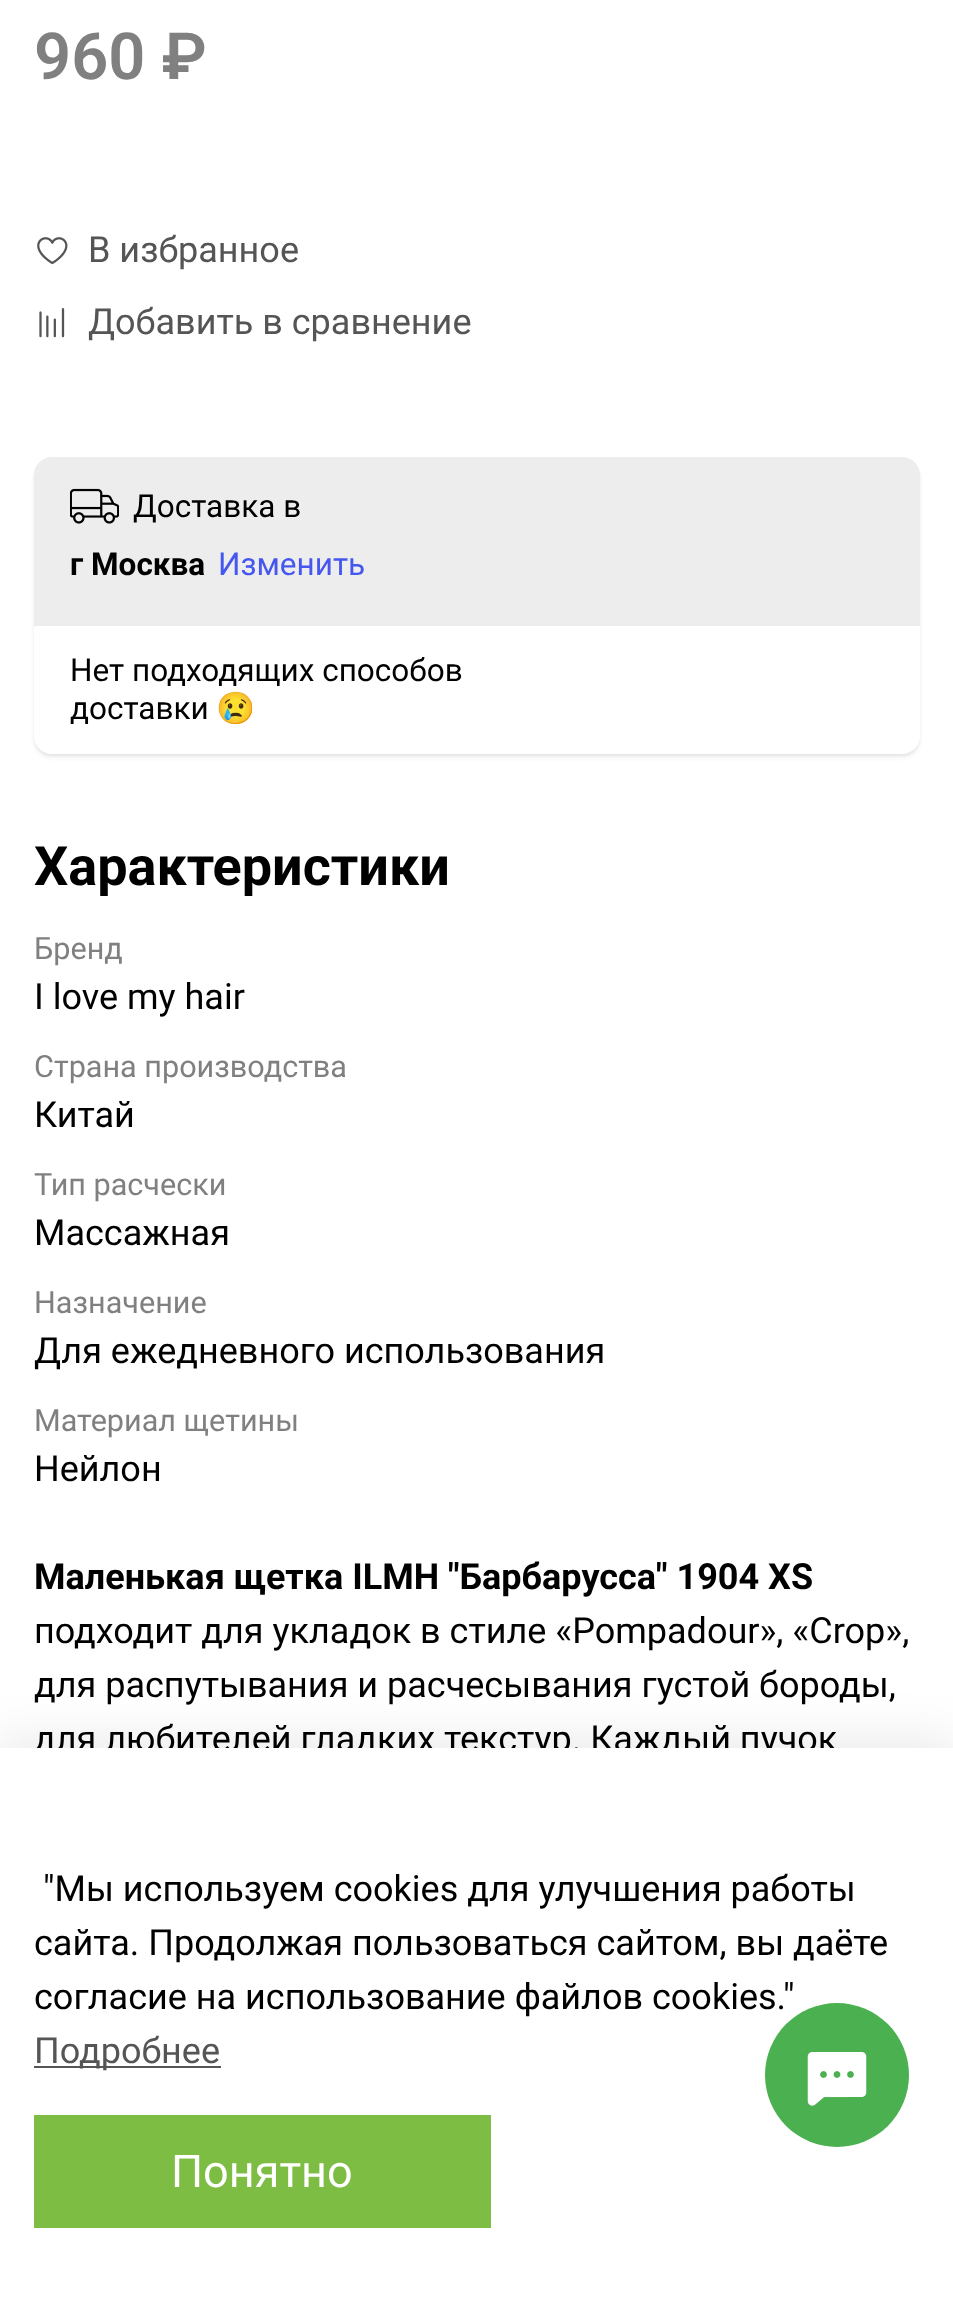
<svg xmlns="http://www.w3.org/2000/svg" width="953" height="2302">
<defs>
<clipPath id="clip1"><path d="M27 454h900v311h-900zm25 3h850c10 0 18 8 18 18v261c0 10-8 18-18 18h-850c-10 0-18-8-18-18v-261c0-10 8-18 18-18z" clip-rule="evenodd"/></clipPath>
<clipPath id="clip2"><path d="M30 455h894v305h-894zm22 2h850c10 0 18 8 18 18v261c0 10-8 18-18 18h-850c-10 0-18-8-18-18v-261c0-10 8-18 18-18z" clip-rule="evenodd"/></clipPath>
</defs>
<rect width="100%" height="100%" fill="#fff"/>
<text x="34" y="79" style="font-family:Roboto;font-size:65px;font-weight:600;fill:#808080">960 ₽</text>
<image x="37" y="237" width="31" height="28" href="media/1.png"/>
<text x="88" y="262" style="font-family:Roboto;font-size:36px;fill:#555">В избранное</text>
<image x="39" y="308" width="26" height="30" href="media/2.png"/>
<text x="88" y="334" style="font-family:Roboto;font-size:36px;fill:#555">Добавить в сравнение</text>
<g clip-path="url(#clip1)">
<rect x="34" y="461" width="886" height="297" rx="18" fill="#0000000d" filter="blur(2px)"/>
</g>
<g clip-path="url(#clip2)">
<rect x="34" y="459" width="886" height="297" rx="18" fill="#0000000d" filter="blur(1px)"/>
</g>
<path d="M52 457h850c10 0 18 8 18 18v151h-886v-151c0-10 8-18 18-18z" fill="#ededed"/>
<image x="70" y="488" width="49" height="36" href="media/3.png"/>
<text x="133" y="517" style="font-family:Roboto;font-size:31.5px;fill:#000">Доставка в</text>
<text x="70" y="575" style="font-family:Roboto;font-size:31.5px;font-weight:bold;fill:#000">г Москва</text>
<text x="218" y="575" style="font-family:Roboto;font-size:31.5px;fill:#4657ef">Изменить</text>
<text x="70" y="681" style="font-family:Roboto;font-size:31.5px;fill:#000">Нет подходящих способов</text>
<text x="70" y="719" style="font-family:Roboto;font-size:31.5px;fill:#000">доставки</text>
<text x="216" y="719" style="font-family:Noto Color Emoji;font-size:31.5px;fill:#000">😢</text>
<text x="34" y="885" style="font-family:Roboto;font-size:54px;font-weight:bold;fill:#000">Характеристики</text>
<text x="34" y="959" style="font-family:Roboto;font-size:30.6px;fill:#808080">Бренд</text>
<text x="34" y="1009" style="font-family:Roboto;font-size:36px;fill:#000">I love my hair</text>
<text x="34" y="1077" style="font-family:Roboto;font-size:30.6px;fill:#808080">Страна производства</text>
<text x="34" y="1127" style="font-family:Roboto;font-size:36px;fill:#000">Китай</text>
<text x="34" y="1195" style="font-family:Roboto;font-size:30.6px;fill:#808080">Тип расчески</text>
<text x="34" y="1245" style="font-family:Roboto;font-size:36px;fill:#000">Массажная</text>
<text x="34" y="1313" style="font-family:Roboto;font-size:30.6px;fill:#808080">Назначение</text>
<text x="34" y="1363" style="font-family:Roboto;font-size:36px;fill:#000">Для ежедневного использования</text>
<text x="34" y="1431" style="font-family:Roboto;font-size:30.6px;fill:#808080">Материал щетины</text>
<text x="34" y="1481" style="font-family:Roboto;font-size:36px;fill:#000">Нейлон</text>
<text x="34" y="1589" style="font-family:Roboto;font-size:36px;font-weight:bold;fill:#000">Маленькая щетка ILMH "Барбарусса" 1904 XS</text>
<text x="34" y="1643" style="font-family:Roboto;font-size:36px;fill:#000">подходит для укладок в стиле «Pompadour», «Crop»,</text>
<text x="34" y="1697" style="font-family:Roboto;font-size:36px;fill:#000">для распутывания и расчесывания густой бороды,</text>
<text x="34" y="1751" style="font-family:Roboto;font-size:36px;fill:#000">для любителей гладких текстур. Каждый пучок</text>
<rect x="-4" y="1742" width="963" height="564" fill="#00000017" filter="blur(26px)"/>
<rect y="1748" width="953" height="554" fill="#fff"/>
<text x="43" y="1901" style="font-family:Roboto;font-size:36px;fill:#000">"Мы используем cookies для улучшения работы</text>
<text x="34" y="1955" style="font-family:Roboto;font-size:36px;fill:#000">сайта. Продолжая пользоваться сайтом, вы даёте</text>
<text x="34" y="2009" style="font-family:Roboto;font-size:36px;fill:#000">согласие на использование файлов cookies."</text>
<rect x="34" y="2066" width="187" height="2" fill="#555"/>
<text x="34" y="2063" style="font-family:Roboto;font-size:36px;fill:#555">Подробнее</text>
<rect x="34" y="2115" width="457" height="113" fill="#7ebd44"/>
<text x="171" y="2187" style="font-family:Roboto;font-size:45px;fill:#fff">Понятно</text>
<circle cx="837" cy="2075" r="72" fill="#4bb04f"/>
<image x="807" y="2052" width="60" height="54" href="media/4.png"/>
</svg>
